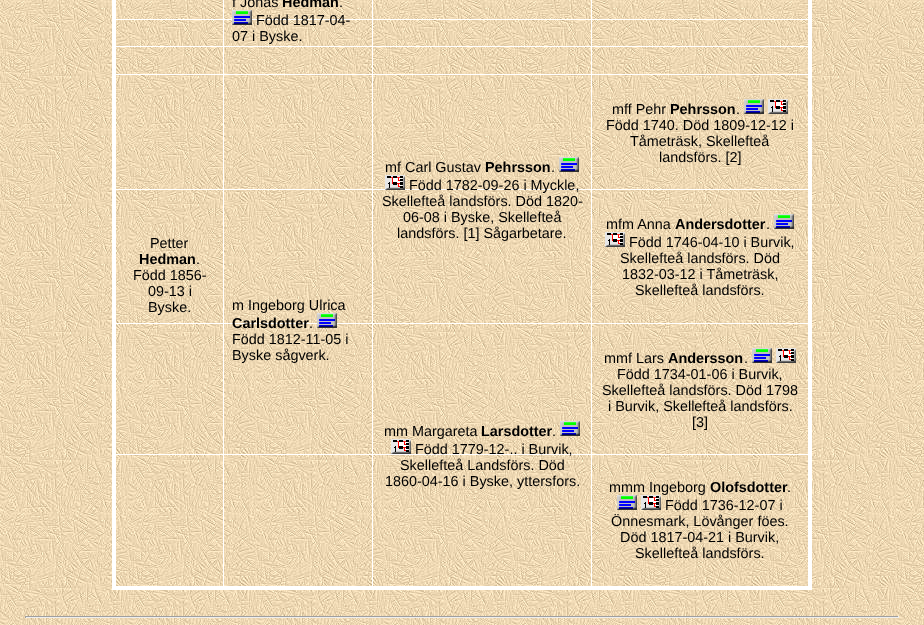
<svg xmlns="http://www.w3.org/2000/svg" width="924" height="625">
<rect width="100%" height="100%" fill="#fff"/>
<image x="0" y="0" width="924" height="625" href="media/1.png"/>
<rect x="114" y="19" width="696" height="1" fill="#fff"/>
<rect x="114" y="46" width="696" height="1" fill="#fff"/>
<rect x="114" y="74" width="696" height="1" fill="#fff"/>
<rect x="114" y="189" width="696" height="1" fill="#fff"/>
<rect x="114" y="323" width="696" height="1" fill="#fff"/>
<rect x="114" y="454" width="696" height="1" fill="#fff"/>
<rect x="808" width="4" height="590" fill="#fff"/>
<rect x="223" width="1" height="588" fill="#fff"/>
<rect x="372" width="1" height="588" fill="#fff"/>
<rect x="591" width="1" height="588" fill="#fff"/>
<rect x="112" y="586" width="700" height="4" fill="#fff"/>
<rect x="112" width="4" height="590" fill="#fff"/>
<text x="232" y="7" style="font-family:Liberation Sans;font-size:14.4px;fill:#000">f Jonas</text>
<text x="282" y="7" style="font-family:Liberation Sans;font-size:14.4px;font-weight:bold;fill:#000">Hedman</text>
<text x="339" y="7" style="font-family:Liberation Sans;font-size:14.4px;fill:#000">.</text>
<image x="232" y="10" width="20" height="15" href="media/2.png"/>
<text x="256" y="25" style="font-family:Liberation Sans;font-size:14.4px;fill:#000">Född 1817-04-</text>
<text x="232" y="41" style="font-family:Liberation Sans;font-size:14.4px;fill:#000">07 i Byske.</text>
<text x="150" y="248" style="font-family:Liberation Sans;font-size:14.4px;fill:#000">Petter</text>
<text x="139" y="264" style="font-family:Liberation Sans;font-size:14.4px;font-weight:bold;fill:#000">Hedman</text>
<text x="196" y="264" style="font-family:Liberation Sans;font-size:14.4px;fill:#000">.</text>
<text x="133" y="280" style="font-family:Liberation Sans;font-size:14.4px;fill:#000">Född 1856-</text>
<text x="148" y="296" style="font-family:Liberation Sans;font-size:14.4px;fill:#000">09-13 i</text>
<text x="148" y="312" style="font-family:Liberation Sans;font-size:14.4px;fill:#000">Byske.</text>
<text x="612" y="114" style="font-family:Liberation Sans;font-size:14.4px;fill:#000">mff Pehr</text>
<text x="670" y="114" style="font-family:Liberation Sans;font-size:14.4px;font-weight:bold;fill:#000">Pehrsson</text>
<text x="736" y="114" style="font-family:Liberation Sans;font-size:14.4px;fill:#000">.</text>
<image x="744" y="99" width="20" height="15" href="media/2.png"/>
<image x="768" y="99" width="20" height="15" href="media/3.png"/>
<text x="606" y="130" style="font-family:Liberation Sans;font-size:14.4px;fill:#000">Född 1740. Död 1809-12-12 i</text>
<text x="630" y="146" style="font-family:Liberation Sans;font-size:14.4px;fill:#000">Tåmeträsk, Skellefteå</text>
<text x="659" y="162" style="font-family:Liberation Sans;font-size:14.4px;fill:#000">landsförs. [2]</text>
<text x="385" y="172" style="font-family:Liberation Sans;font-size:14.4px;fill:#000">mf Carl Gustav</text>
<text x="485" y="172" style="font-family:Liberation Sans;font-size:14.4px;font-weight:bold;fill:#000">Pehrsson</text>
<text x="551" y="172" style="font-family:Liberation Sans;font-size:14.4px;fill:#000">.</text>
<image x="559" y="157" width="20" height="15" href="media/2.png"/>
<image x="385" y="175" width="20" height="15" href="media/3.png"/>
<text x="409" y="190" style="font-family:Liberation Sans;font-size:14.4px;fill:#000">Född 1782-09-26 i Myckle,</text>
<text x="382" y="206" style="font-family:Liberation Sans;font-size:14.4px;fill:#000">Skellefteå landsförs. Död 1820-</text>
<text x="403" y="222" style="font-family:Liberation Sans;font-size:14.4px;fill:#000">06-08 i Byske, Skellefteå</text>
<text x="397" y="238" style="font-family:Liberation Sans;font-size:14.4px;fill:#000">landsförs. [1] Sågarbetare.</text>
<text x="232" y="310" style="font-family:Liberation Sans;font-size:14.4px;fill:#000">m Ingeborg Ulrica</text>
<text x="232" y="328" style="font-family:Liberation Sans;font-size:14.4px;font-weight:bold;fill:#000">Carlsdotter</text>
<text x="309" y="328" style="font-family:Liberation Sans;font-size:14.4px;fill:#000">.</text>
<image x="317" y="313" width="20" height="15" href="media/2.png"/>
<text x="232" y="344" style="font-family:Liberation Sans;font-size:14.4px;fill:#000">Född 1812-11-05 i</text>
<text x="232" y="360" style="font-family:Liberation Sans;font-size:14.4px;fill:#000">Byske sågverk.</text>
<text x="606" y="229" style="font-family:Liberation Sans;font-size:14.4px;fill:#000">mfm Anna</text>
<text x="675" y="229" style="font-family:Liberation Sans;font-size:14.4px;font-weight:bold;fill:#000">Andersdotter</text>
<text x="766" y="229" style="font-family:Liberation Sans;font-size:14.4px;fill:#000">.</text>
<image x="774" y="214" width="20" height="15" href="media/2.png"/>
<image x="605" y="232" width="20" height="15" href="media/3.png"/>
<text x="629" y="247" style="font-family:Liberation Sans;font-size:14.4px;fill:#000">Född 1746-04-10 i Burvik,</text>
<text x="620" y="263" style="font-family:Liberation Sans;font-size:14.4px;fill:#000">Skellefteå landsförs. Död</text>
<text x="622" y="279" style="font-family:Liberation Sans;font-size:14.4px;fill:#000">1832-03-12 i Tåmeträsk,</text>
<text x="635" y="295" style="font-family:Liberation Sans;font-size:14.4px;fill:#000">Skellefteå landsförs.</text>
<text x="604" y="363" style="font-family:Liberation Sans;font-size:14.4px;fill:#000">mmf Lars</text>
<text x="668" y="363" style="font-family:Liberation Sans;font-size:14.4px;font-weight:bold;fill:#000">Andersson</text>
<text x="744" y="363" style="font-family:Liberation Sans;font-size:14.4px;fill:#000">.</text>
<image x="752" y="348" width="20" height="15" href="media/2.png"/>
<image x="776" y="348" width="20" height="15" href="media/3.png"/>
<text x="617" y="379" style="font-family:Liberation Sans;font-size:14.4px;fill:#000">Född 1734-01-06 i Burvik,</text>
<text x="602" y="395" style="font-family:Liberation Sans;font-size:14.4px;fill:#000">Skellefteå landsförs. Död 1798</text>
<text x="608" y="411" style="font-family:Liberation Sans;font-size:14.4px;fill:#000">i Burvik, Skellefteå landsförs.</text>
<text x="692" y="427" style="font-family:Liberation Sans;font-size:14.4px;fill:#000">[3]</text>
<text x="384" y="436" style="font-family:Liberation Sans;font-size:14.4px;fill:#000">mm Margareta</text>
<text x="481" y="436" style="font-family:Liberation Sans;font-size:14.4px;font-weight:bold;fill:#000">Larsdotter</text>
<text x="552" y="436" style="font-family:Liberation Sans;font-size:14.4px;fill:#000">.</text>
<image x="560" y="421" width="20" height="15" href="media/2.png"/>
<image x="391" y="439" width="20" height="15" href="media/3.png"/>
<text x="415" y="454" style="font-family:Liberation Sans;font-size:14.4px;fill:#000">Född 1779-12-.. i Burvik,</text>
<text x="400" y="470" style="font-family:Liberation Sans;font-size:14.4px;fill:#000">Skellefteå Landsförs. Död</text>
<text x="385" y="486" style="font-family:Liberation Sans;font-size:14.4px;fill:#000">1860-04-16 i Byske, yttersfors.</text>
<text x="609" y="492" style="font-family:Liberation Sans;font-size:14.4px;fill:#000">mmm Ingeborg</text>
<text x="710" y="492" style="font-family:Liberation Sans;font-size:14.4px;font-weight:bold;fill:#000">Olofsdotter</text>
<text x="787" y="492" style="font-family:Liberation Sans;font-size:14.4px;fill:#000">.</text>
<image x="617" y="495" width="20" height="15" href="media/2.png"/>
<image x="641" y="495" width="20" height="15" href="media/3.png"/>
<text x="665" y="510" style="font-family:Liberation Sans;font-size:14.4px;fill:#000">Född 1736-12-07 i</text>
<text x="611" y="526" style="font-family:Liberation Sans;font-size:14.4px;fill:#000">Önnesmark, Lövånger föes.</text>
<text x="620" y="542" style="font-family:Liberation Sans;font-size:14.4px;fill:#000">Död 1817-04-21 i Burvik,</text>
<text x="635" y="558" style="font-family:Liberation Sans;font-size:14.4px;fill:#000">Skellefteå landsförs.</text>
<rect x="25" y="616" width="874" height="1" fill="#9f9f9f"/>
<rect x="898" y="616" width="1" height="2" fill="#eee"/>
<rect x="25" y="617" width="874" height="1" fill="#eee"/>
<rect x="25" y="616" width="1" height="2" fill="#9f9f9f"/>
</svg>
